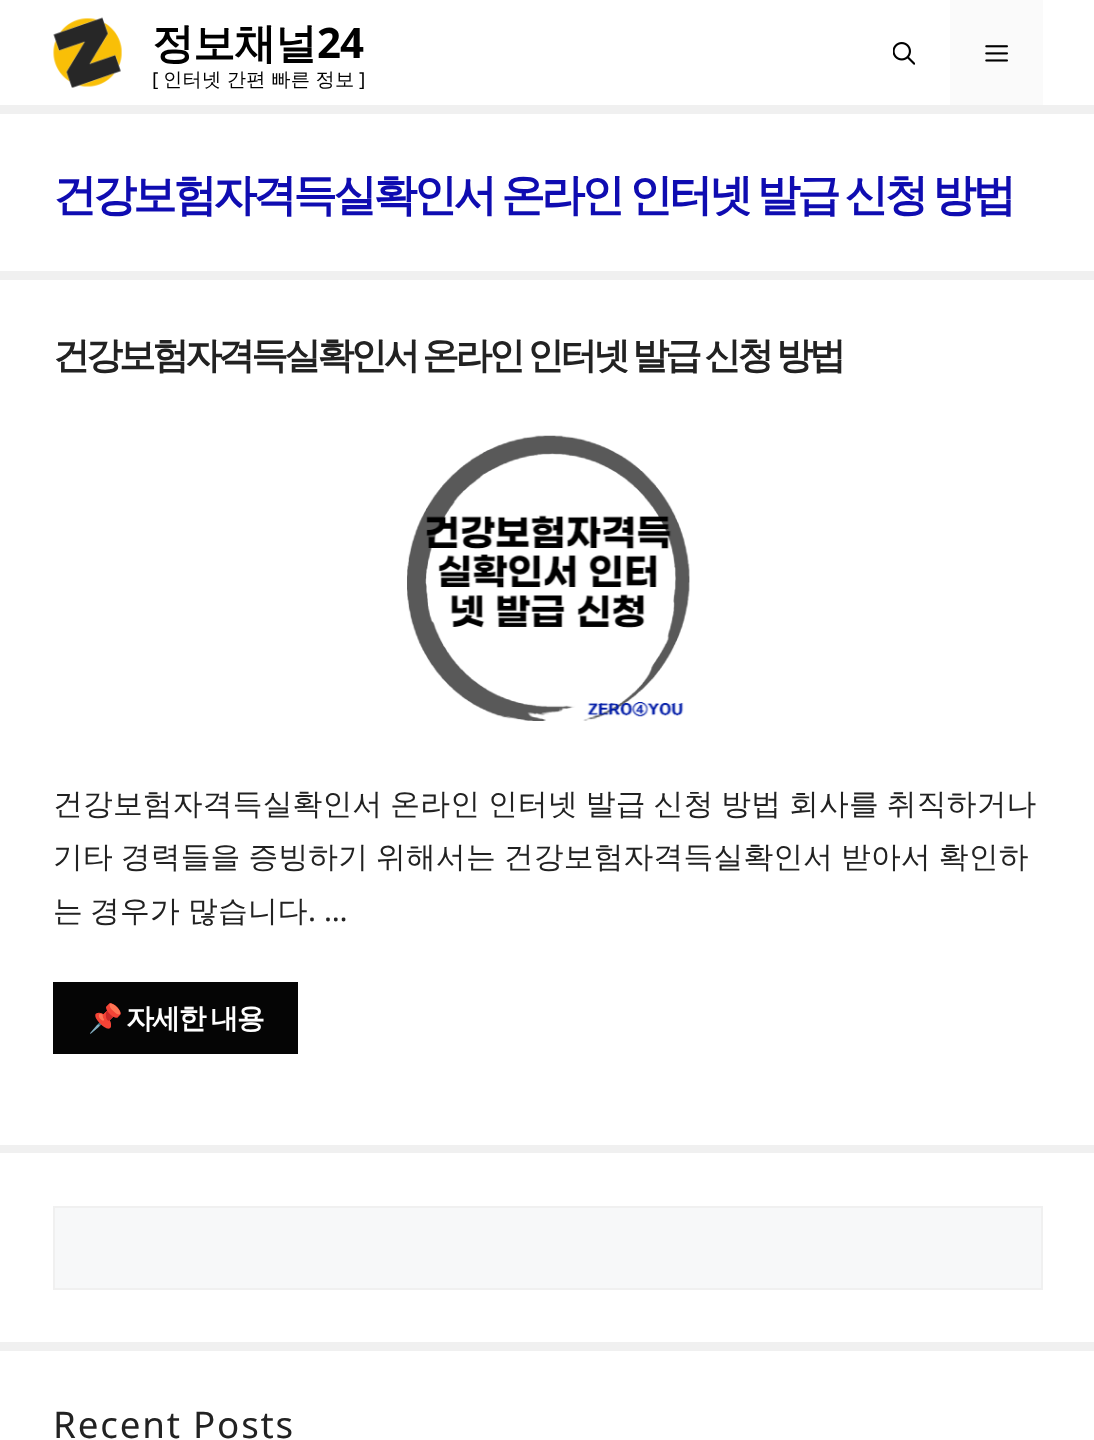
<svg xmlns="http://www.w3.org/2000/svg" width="1094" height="1440">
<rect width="100%" height="100%" fill="#f0f0f0"/>
<rect width="1094" height="105" fill="#fff"/>
<image x="53" y="17" width="69" height="71" href="media/1.png"/>
<text x="152" y="58" style="font-family:WenQuanYi Zen Hei;font-size:42px;font-weight:bold;letter-spacing:-1px;fill:#000">정보채널</text>
<text x="317" y="58" style="font-family:Noto Sans;font-size:42px;font-weight:bold;letter-spacing:-1px;fill:#000">24</text>
<text x="152" y="86" style="font-family:Noto Sans;font-size:19.25px;letter-spacing:0.2px;fill:#000">[</text>
<text x="163" y="86" word-spacing="-0.5" style="font-family:WenQuanYi Zen Hei;font-size:19.25px;font-weight:500;letter-spacing:0.2px;fill:#000">인터넷 간편 빠른 정보</text>
<text x="359" y="86" style="font-family:Noto Sans;font-size:19.25px;letter-spacing:0.2px;fill:#000">]</text>
<image x="893" y="42" width="22" height="23" href="media/2.png"/>
<rect x="950" width="93" height="105" fill="#fafafa"/>
<image x="985" y="45" width="23" height="17" href="media/3.png"/>
<rect y="114" width="1094" height="157" fill="#fff"/>
<text x="53" y="210" word-spacing="-1.75" style="font-family:WenQuanYi Zen Hei;font-size:43.75px;font-weight:bold;letter-spacing:-3.7px;fill:#0f0cb1">건강보험자격득실확인서 온라인 인터넷 발급 신청 방법</text>
<rect y="280" width="1094" height="865" fill="#fff"/>
<text x="53" y="368" word-spacing="-1.5" style="font-family:WenQuanYi Zen Hei;font-size:36.75px;font-weight:bold;letter-spacing:-3.7px;fill:#222">건강보험자격득실확인서 온라인 인터넷 발급 신청 방법</text>
<image x="407" y="435" width="283" height="286" href="media/4.png"/>
<text x="53" y="814" word-spacing="-1.25" style="font-family:WenQuanYi Zen Hei;font-size:29.75px;font-weight:500;letter-spacing:0.2px;fill:#222">건강보험자격득실확인서 온라인 인터넷 발급 신청 방법 회사를 취직하거나</text>
<text x="53" y="867" word-spacing="-1.25" style="font-family:WenQuanYi Zen Hei;font-size:29.75px;font-weight:500;letter-spacing:0.2px;fill:#222">기타 경력들을 증빙하기 위해서는 건강보험자격득실확인서 받아서 확인하</text>
<text x="53" y="921" style="font-family:WenQuanYi Zen Hei;font-size:29.75px;font-weight:500;letter-spacing:0.2px;fill:#222">는</text>
<text x="90" y="921" style="font-family:WenQuanYi Zen Hei;font-size:29.75px;font-weight:500;letter-spacing:0.2px;fill:#222">경우가</text>
<text x="188" y="921" style="font-family:WenQuanYi Zen Hei;font-size:29.75px;font-weight:500;letter-spacing:0.2px;fill:#222">많습니다</text>
<text x="308" y="921" style="font-family:Noto Sans;font-size:29.75px;letter-spacing:0.2px;fill:#222">. …</text>
<rect x="53" y="982" width="245" height="72" fill="#050505"/>
<text x="88" y="1028" style="font-family:Noto Color Emoji;font-size:28px;font-weight:bold;letter-spacing:-1.75px;fill:#fff">📌</text>
<text x="126" y="1028" word-spacing="-1" style="font-family:WenQuanYi Zen Hei;font-size:28px;font-weight:bold;letter-spacing:-1.75px;fill:#fff">자세한 내용</text>
<rect y="1153" width="1094" height="189" fill="#fff"/>
<rect x="54" y="1207" width="988" height="82" fill="#f7f8f9" stroke="#f0f0f0" stroke-width="2"/>
<rect y="1351" width="1094" height="89" fill="#fff"/>
<text x="53" y="1438" style="font-family:Noto Sans;font-size:36.75px;letter-spacing:1.8px;fill:#222">Recent Posts</text>
</svg>
